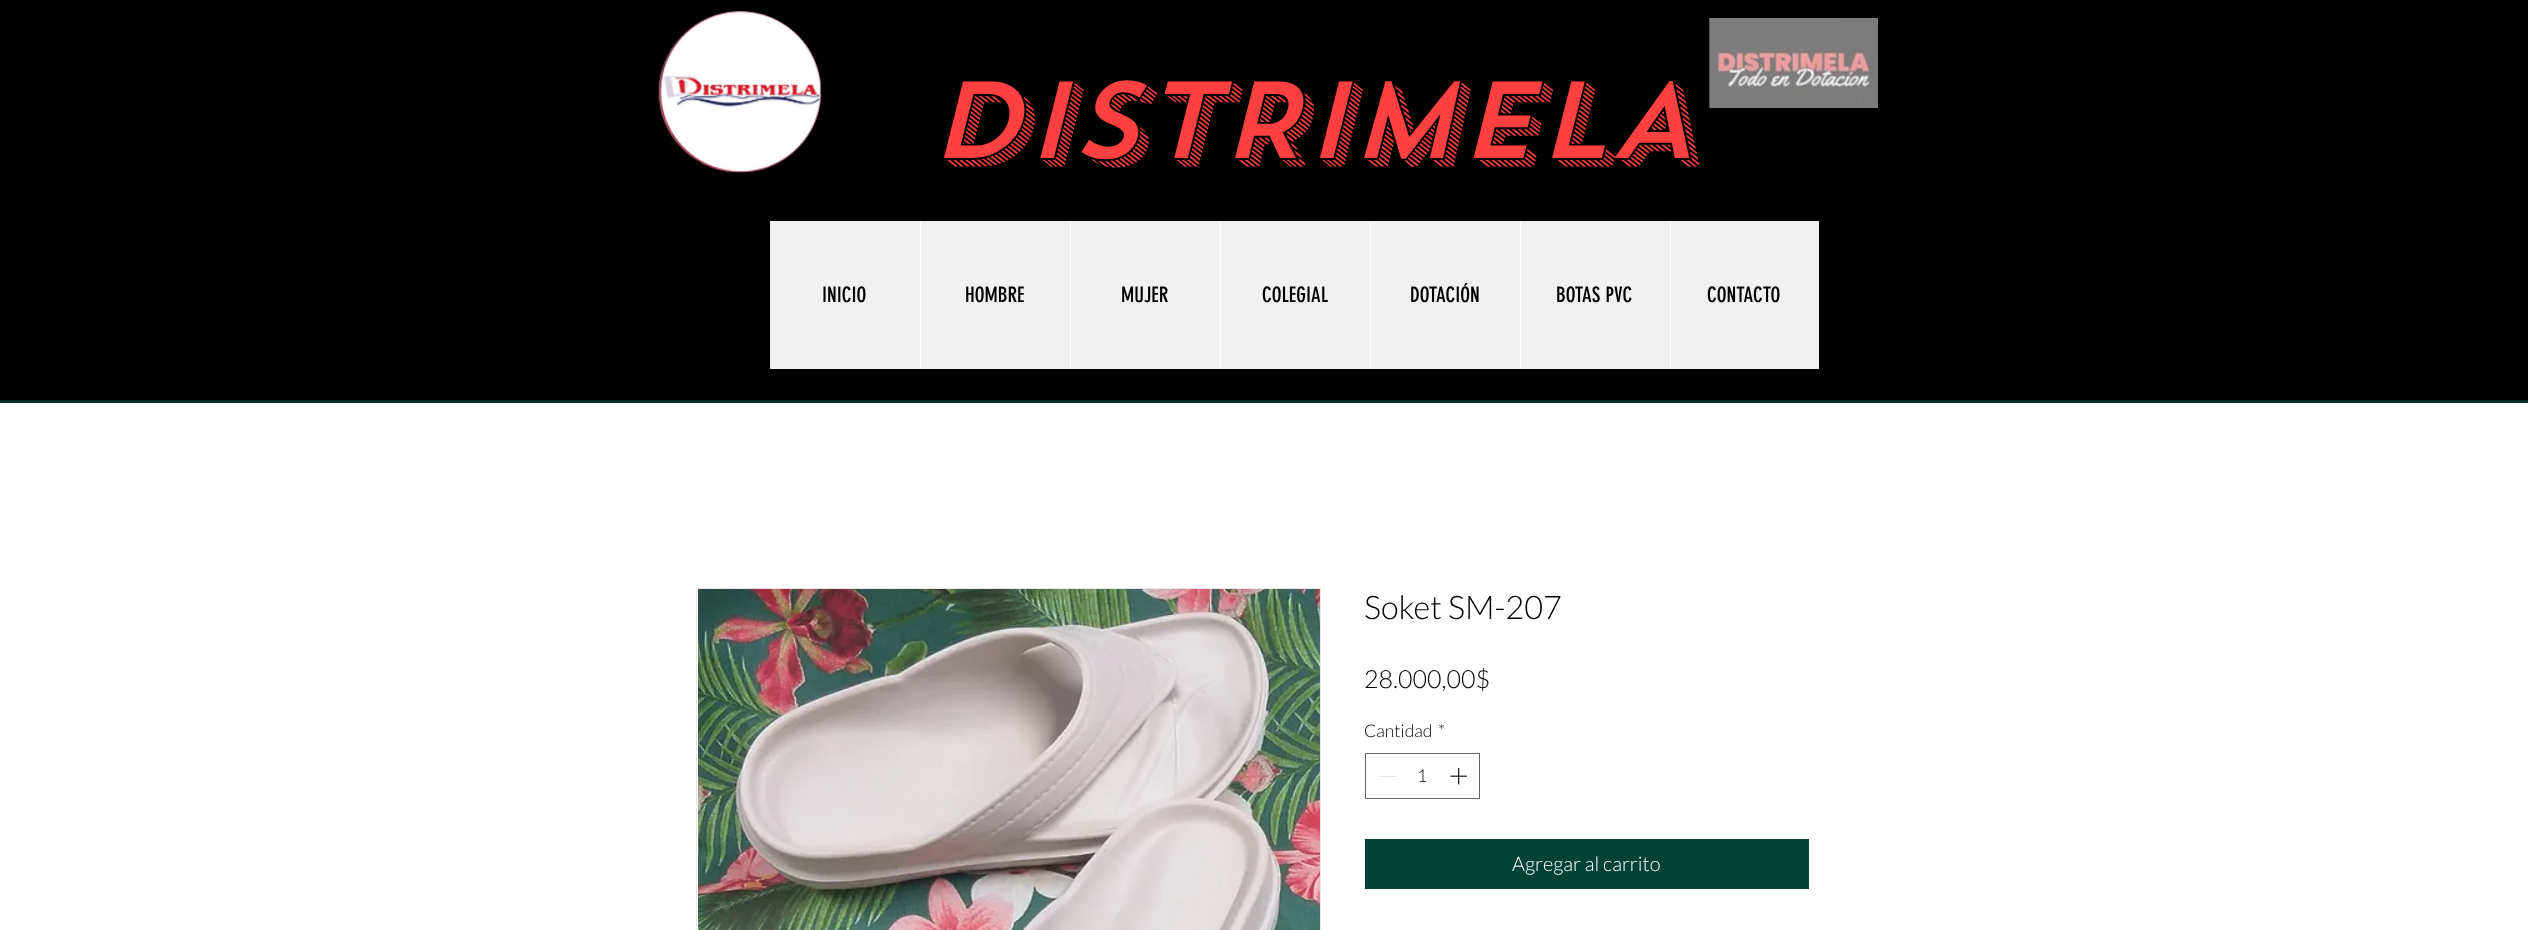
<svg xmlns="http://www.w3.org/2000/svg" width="2528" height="930">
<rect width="100%" height="100%" fill="#fff"/>
<rect width="2528" height="400" fill="#000"/>
<rect y="400" width="2528" height="3" fill="#012a22"/>
<image x="658" y="11" width="164" height="162" href="media/1.png"/>
<image x="1709" y="18" width="169" height="90" href="media/2.png"/>
<text x="928" y="158" style="font-family:'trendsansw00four';font-size:108.75px;font-weight:500;font-style:italic;fill:#ff4040">DISTRIMELA</text>
<rect x="770" y="221" width="1049" height="148" fill="#f1f1f1"/>
<text x="822" y="302" style="font-family:'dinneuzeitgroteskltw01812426';font-size:21px;fill:#000">INICIO</text>
<rect x="920" y="221" width="1" height="148" fill="#fff"/>
<text x="965" y="302" style="font-family:'dinneuzeitgroteskltw01812426';font-size:21px;fill:#000">HOMBRE</text>
<rect x="1070" y="221" width="1" height="148" fill="#fff"/>
<text x="1121" y="302" style="font-family:'dinneuzeitgroteskltw01812426';font-size:21px;fill:#000">MUJER</text>
<rect x="1220" y="221" width="1" height="148" fill="#fff"/>
<text x="1262" y="302" style="font-family:'dinneuzeitgroteskltw01812426';font-size:21px;fill:#000">COLEGIAL</text>
<rect x="1370" y="221" width="1" height="148" fill="#fff"/>
<text x="1410" y="302" style="font-family:'dinneuzeitgroteskltw01812426';font-size:21px;fill:#000">DOTACIÓN</text>
<rect x="1520" y="221" width="1" height="148" fill="#fff"/>
<text x="1556" y="302" style="font-family:'dinneuzeitgroteskltw01812426';font-size:21px;fill:#000">BOTAS PVC</text>
<rect x="1670" y="221" width="1" height="148" fill="#fff"/>
<text x="1707" y="302" style="font-family:'dinneuzeitgroteskltw01812426';font-size:21px;fill:#000">CONTACTO</text>
<rect x="696.5" y="588.5" width="624" height="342" fill="none" stroke="#e8e6e6"/>
<image x="698" y="589" width="622" height="341" href="media/3.png"/>
<text x="1364" y="619" style="font-family:Lato;font-size:32.5px;font-weight:300;fill:#000">Soket SM-207</text>
<text x="1364" y="688" style="font-family:Lato;font-size:25px;font-weight:300;fill:#000">28.000,00$</text>
<text x="1364" y="737" style="font-family:Lato;font-size:17.5px;font-weight:300;fill:#000">Cantidad</text>
<text x="1438" y="737" style="font-family:Lato;font-size:17.5px;font-weight:300;fill:#000">*</text>
<rect x="1365.5" y="753.5" width="114" height="45" fill="none" stroke="#666"/>
<rect x="1379" y="776" width="17" height="1" fill="#e3e3e3"/>
<text x="1417" y="782" style="font-family:Lato;font-size:17.5px;font-weight:300;fill:#000">1</text>
<image x="1450" y="767" width="17" height="18" href="media/4.png"/>
<rect x="1365" y="839" width="444" height="50" fill="#014235"/>
<text x="1512" y="871" style="font-family:Lato;font-size:20px;font-weight:300;fill:#fff">Agregar al carrito</text>
</svg>
